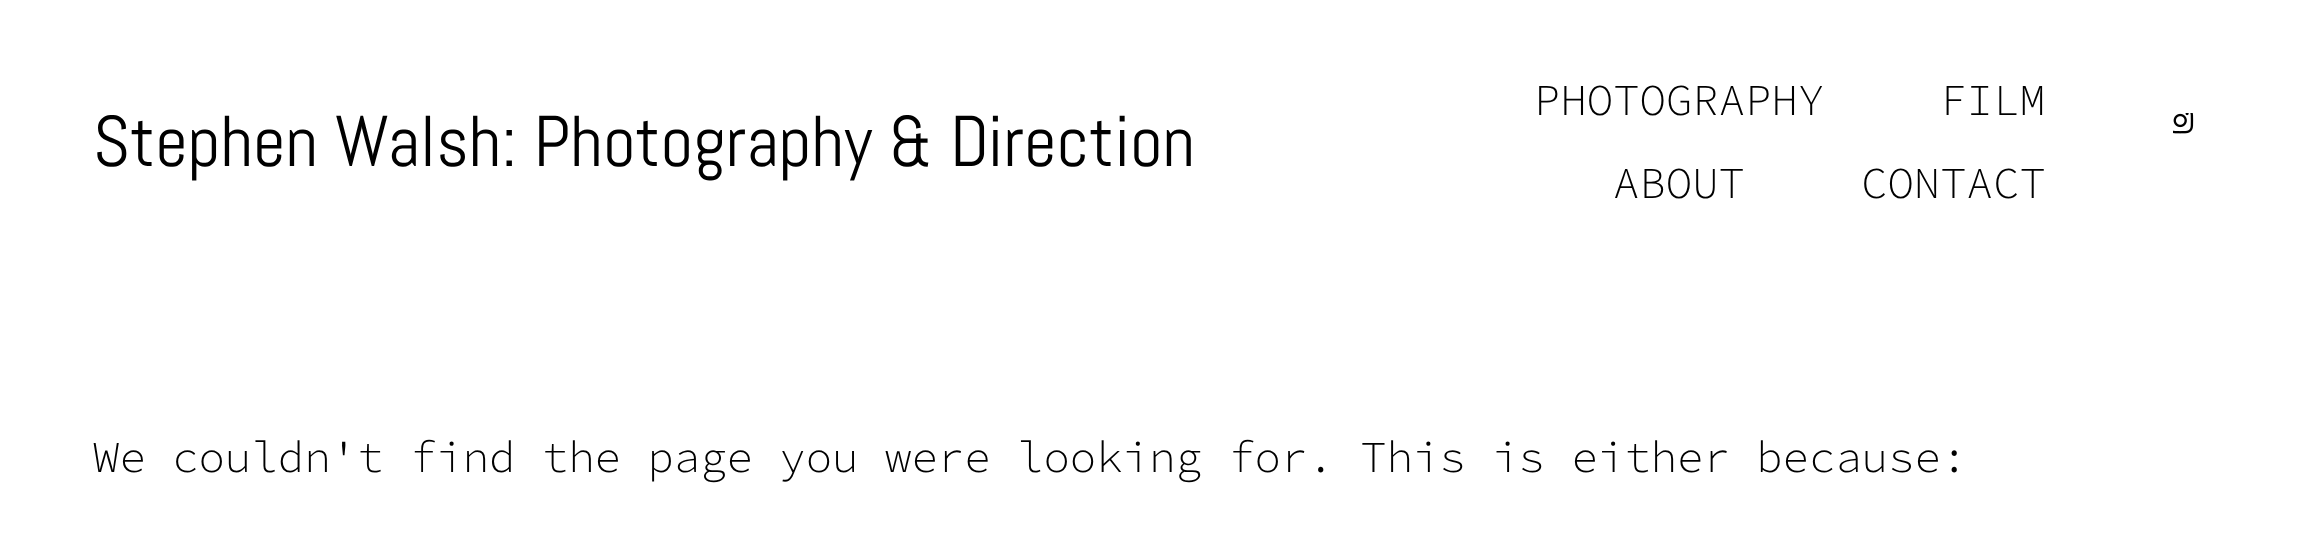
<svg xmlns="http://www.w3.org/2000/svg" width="2320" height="549">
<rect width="100%" height="100%" fill="#fff"/>
<text x="93" y="166" style="font-family:Abel;font-size:71.8px;fill:#000">Stephen Walsh: Photography &amp; Direction</text>
<text x="1534" y="115" style="font-family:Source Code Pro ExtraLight;font-size:44px;font-weight:300;fill:#000">PHOTOGRAPHY</text>
<text x="1940" y="115" style="font-family:Source Code Pro ExtraLight;font-size:44px;font-weight:300;fill:#000">FILM</text>
<text x="1613" y="198" style="font-family:Source Code Pro ExtraLight;font-size:44px;font-weight:300;fill:#000">ABOUT</text>
<text x="1861" y="198" style="font-family:Source Code Pro ExtraLight;font-size:44px;font-weight:300;fill:#000">CONTACT</text>
<image x="2173" y="113" width="21" height="21" href="media/1.png"/>
<text x="93" y="472" style="font-family:Source Code Pro ExtraLight;font-size:44px;font-weight:300;fill:#000">We couldn't find the page you were looking for. This is either because:</text>
</svg>
